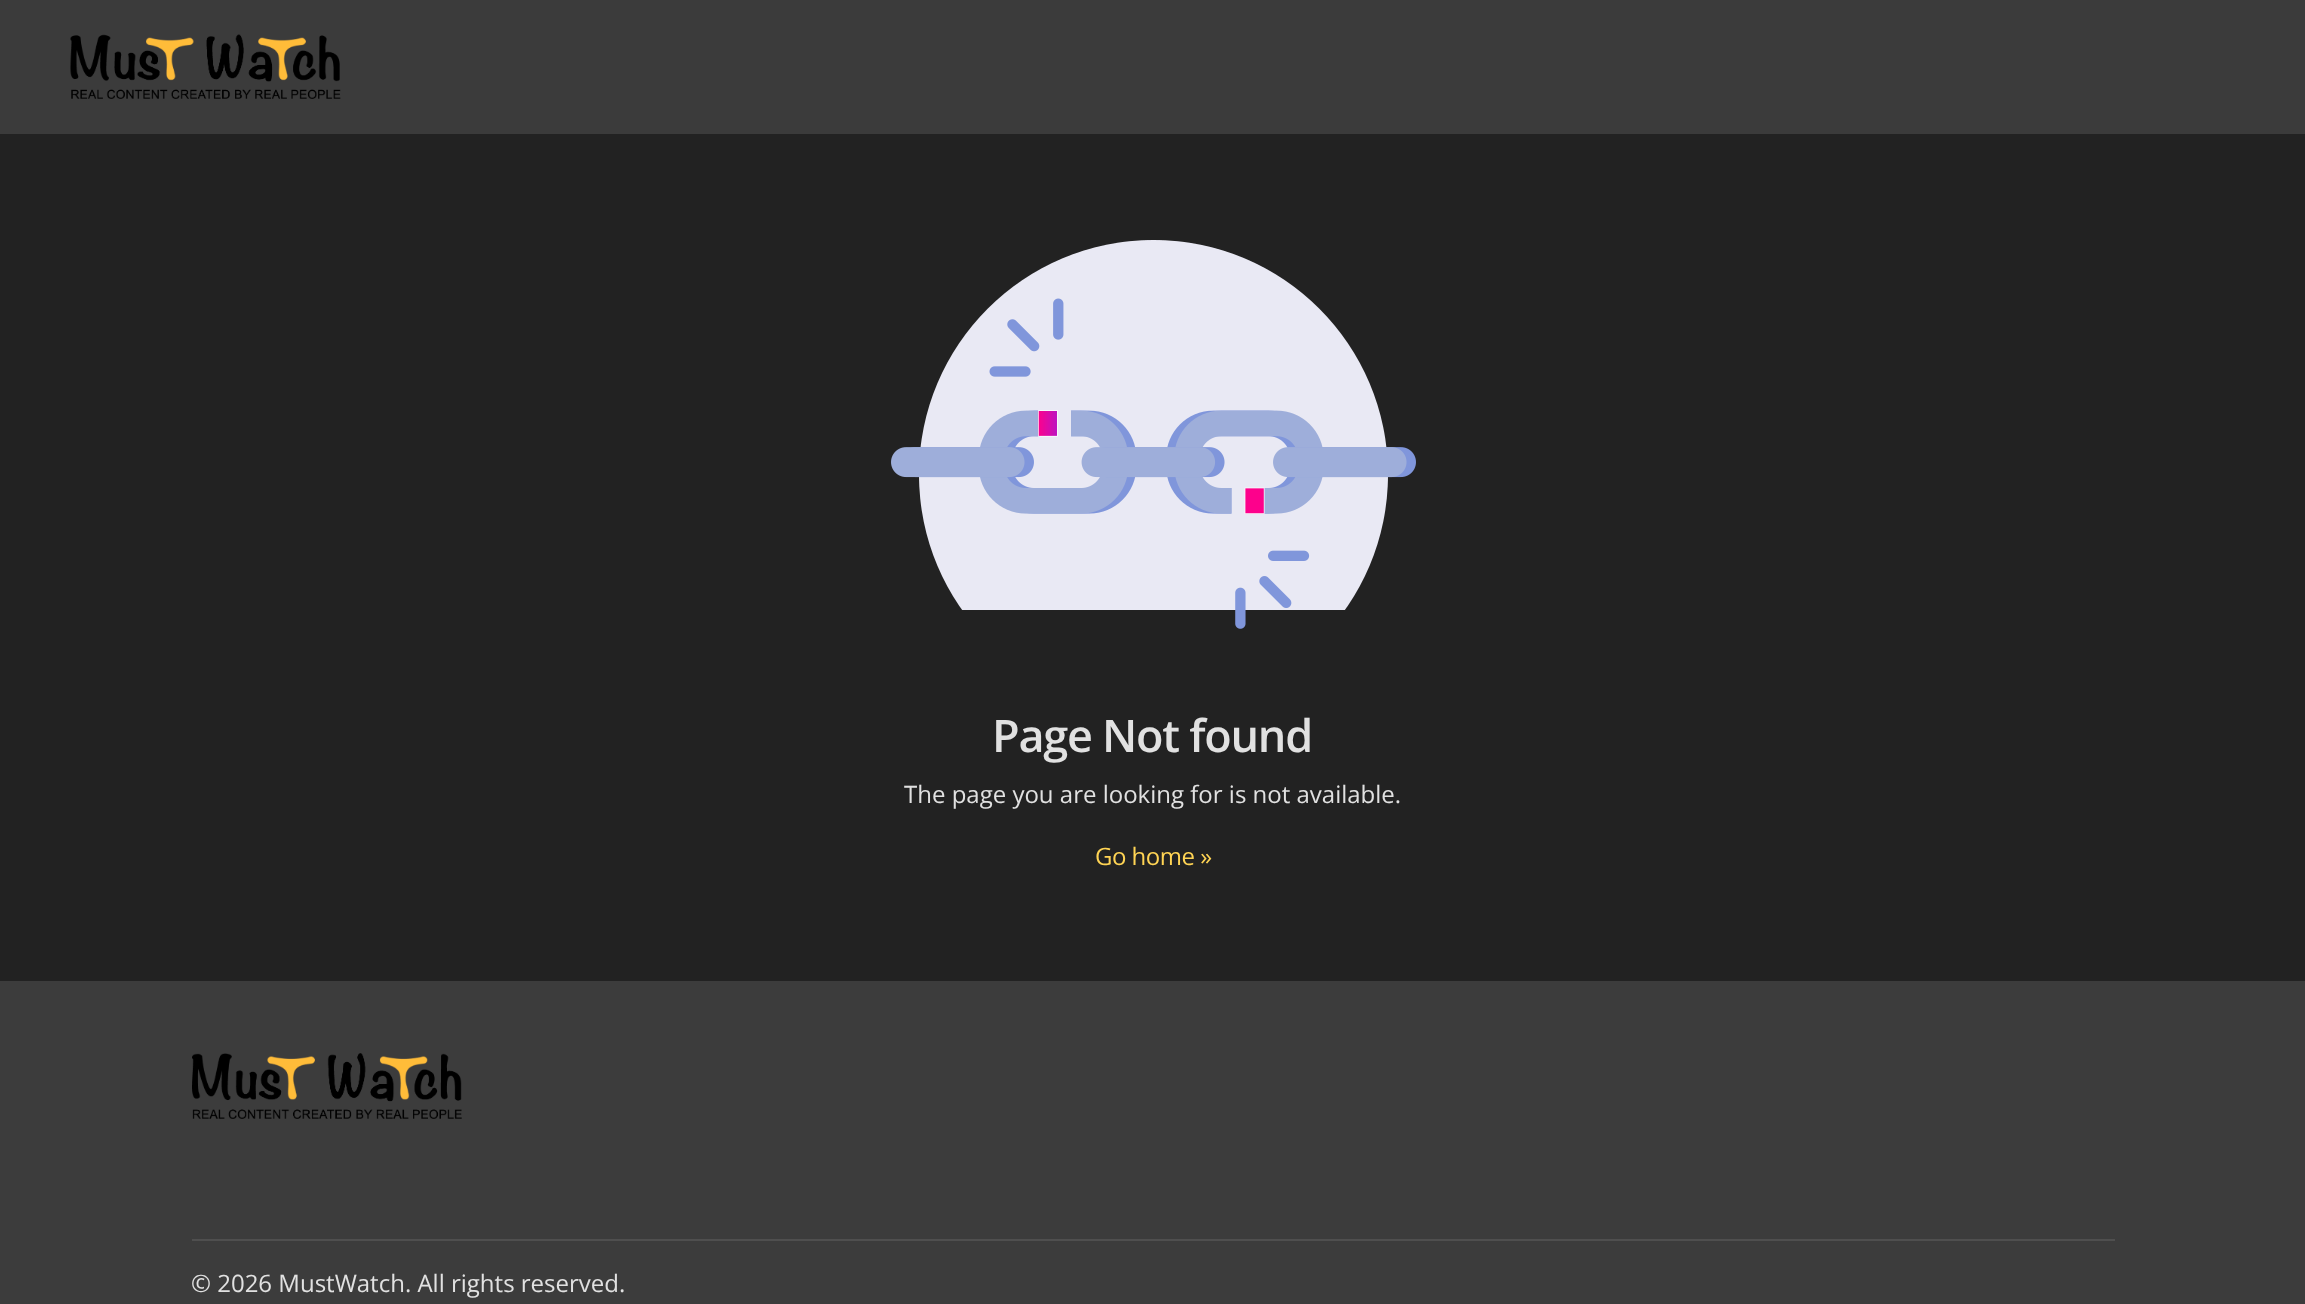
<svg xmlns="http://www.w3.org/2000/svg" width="2305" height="1304">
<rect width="100%" height="100%" fill="#222"/>
<rect width="2305" height="134" fill="#3b3b3b"/>
<image x="70" y="34" width="271" height="65" href="media/1.png"/>
<image x="891" y="240" width="525" height="389" href="media/2.png"/>
<text x="992" y="752" style="font-family:Open Sans;font-size:45px;font-weight:600;letter-spacing:-1.25px;fill:#e1e1e1">Page Not found</text>
<text x="904" y="803" style="font-family:Open Sans;font-size:24px;fill:#e1e1e1">The page you are looking for is not available.</text>
<text x="1095" y="865" style="font-family:Open Sans;font-size:24px;letter-spacing:-0.5px;fill:#ffd454">Go home »</text>
<rect y="981" width="2305" height="323" fill="#3c3c3c"/>
<image x="192" y="1053" width="270" height="66" href="media/3.png"/>
<rect x="192" y="1239" width="1923" height="2" fill="#4f4f4f"/>
<text x="191" y="1292" style="font-family:Open Sans;font-size:24px;fill:#e1e1e1">© 2026 MustWatch. All rights reserved.</text>
</svg>
